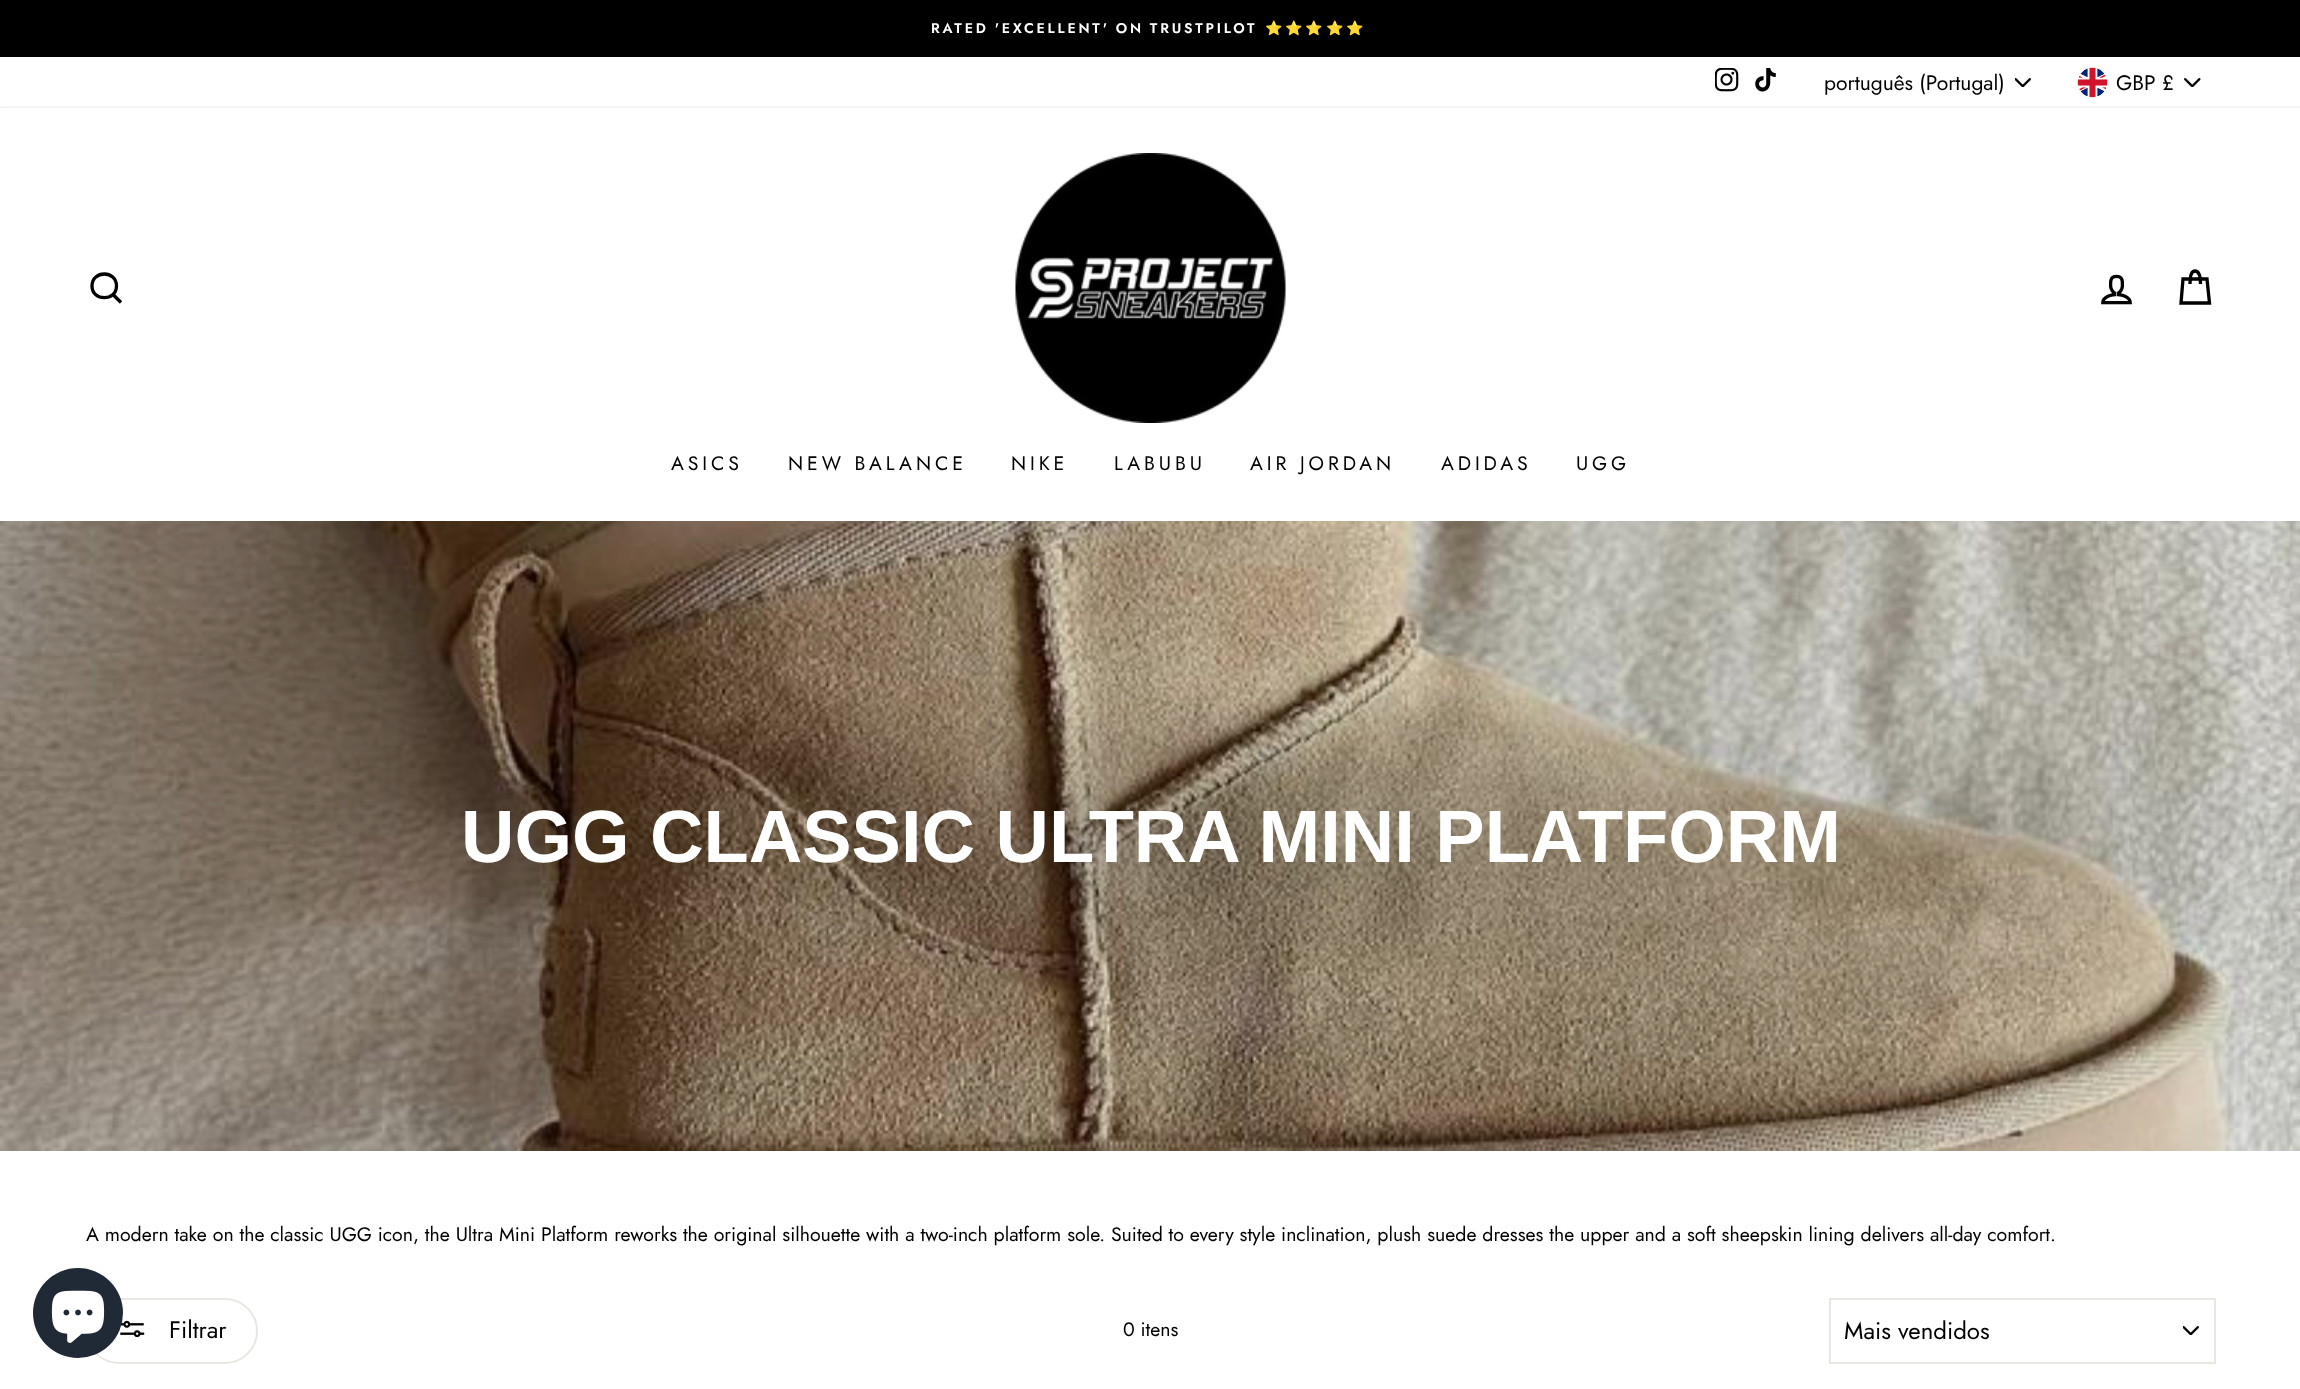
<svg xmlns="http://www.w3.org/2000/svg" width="2300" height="1389">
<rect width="100%" height="100%" fill="#fff"/>
<rect x="87" y="1299" width="170" height="64" rx="32" fill="none" stroke="#e8e8e1" stroke-width="2"/>
<image x="120" y="1320" width="25" height="18" href="media/10.png"/>
<circle cx="78" cy="1313" r="45" fill="#202a36"/>
<image x="51" y="1290" width="54" height="53" href="media/1.png"/>
<rect width="2300" height="57" fill="#000"/>
<text x="931" y="33" word-spacing="-1" style="font-family:Jost;font-size:14.1px;font-weight:600;letter-spacing:2.8px;fill:#fff">RATED 'EXCELLENT' ON TRUSTPILOT</text>
<text x="1265" y="33" style="font-family:Noto Color Emoji;font-size:14.1px;font-weight:bold;letter-spacing:2.8px;fill:#fff">⭐️⭐️⭐️⭐️⭐️</text>
<image x="1715" y="68" width="24" height="24" href="media/2.png"/>
<image x="1755" y="68" width="21" height="24" href="media/3.png"/>
<image x="2015" y="78" width="16" height="9" href="media/4.png"/>
<text x="1824" y="90" style="font-family:Jost;font-size:21px;fill:#000">português (Portugal)</text>
<image x="2184" y="78" width="17" height="9" href="media/5.png"/>
<image x="2077" y="67" width="31" height="31" href="media/6.png"/>
<text x="2116" y="90" style="font-family:Jost;font-size:21px;fill:#000">GBP £</text>
<rect y="108" width="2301" height="413" fill="#00000033" filter="blur(1px)"/>
<rect y="108" width="2300" height="413" fill="#fff"/>
<path d="M116.5 286c0 15.5-24.5 15.5-24.5 0c0-16 24.5-16 24.5 0zm4.5 16.5l-8-8" fill="none" stroke="#000" stroke-width="3.3"/>
<image x="1015" y="153" width="271" height="270" href="media/7.png"/>
<image x="2101" y="274" width="31" height="31" href="media/8.png"/>
<path d="M2190 284c0-10.5 2-13 5-13c3 0 5.5 2.5 5.5 13m-17.5-5h24l2.5 24h-28.5z" fill="none" stroke="#000" stroke-width="3.3"/>
<text x="671" y="470" style="font-family:Jost;font-size:19.5px;letter-spacing:3.9px;fill:#000">ASICS</text>
<text x="788" y="470" style="font-family:Jost;font-size:19.5px;letter-spacing:3.9px;fill:#000">NEW BALANCE</text>
<text x="1011" y="470" style="font-family:Jost;font-size:19.5px;letter-spacing:3.9px;fill:#000">NIKE</text>
<text x="1114" y="470" style="font-family:Jost;font-size:19.5px;letter-spacing:3.9px;fill:#000">LABUBU</text>
<text x="1250" y="470" style="font-family:Jost;font-size:19.5px;letter-spacing:3.9px;fill:#000">AIR JORDAN</text>
<text x="1441" y="470" style="font-family:Jost;font-size:19.5px;letter-spacing:3.9px;fill:#000">ADIDAS</text>
<text x="1576" y="470" style="font-family:Jost;font-size:19.5px;letter-spacing:3.9px;fill:#000">UGG</text>
<image x="0" y="521" width="2300" height="630" href="media/9.png"/>
<text x="461" y="862" style="font-family:Liberation Sans;font-size:74px;font-weight:bold;fill:#fff">UGG CLASSIC ULTRA MINI PLATFORM</text>
<text x="86" y="1241" style="font-family:Jost;font-size:19.5px;fill:#000">A modern take on the classic UGG icon, the Ultra Mini Platform reworks the original silhouette with a two-inch platform sole. Suited to every style inclination, plush suede dresses the upper and a soft sheepskin lining delivers all-day comfort.</text>
<text x="169" y="1338" style="font-family:Jost;font-size:24px;fill:#000">Filtrar</text>
<text x="1123" y="1336" style="font-family:Jost;font-size:19.5px;fill:#000">0 itens</text>
<image x="2183" y="1326" width="16" height="9" href="media/4.png"/>
<rect x="1830" y="1299" width="385" height="64" fill="none" stroke="#e8e8e1" stroke-width="2"/>
<text x="1844" y="1339" style="font-family:Jost;font-size:24px;fill:#000">Mais vendidos</text>
</svg>
